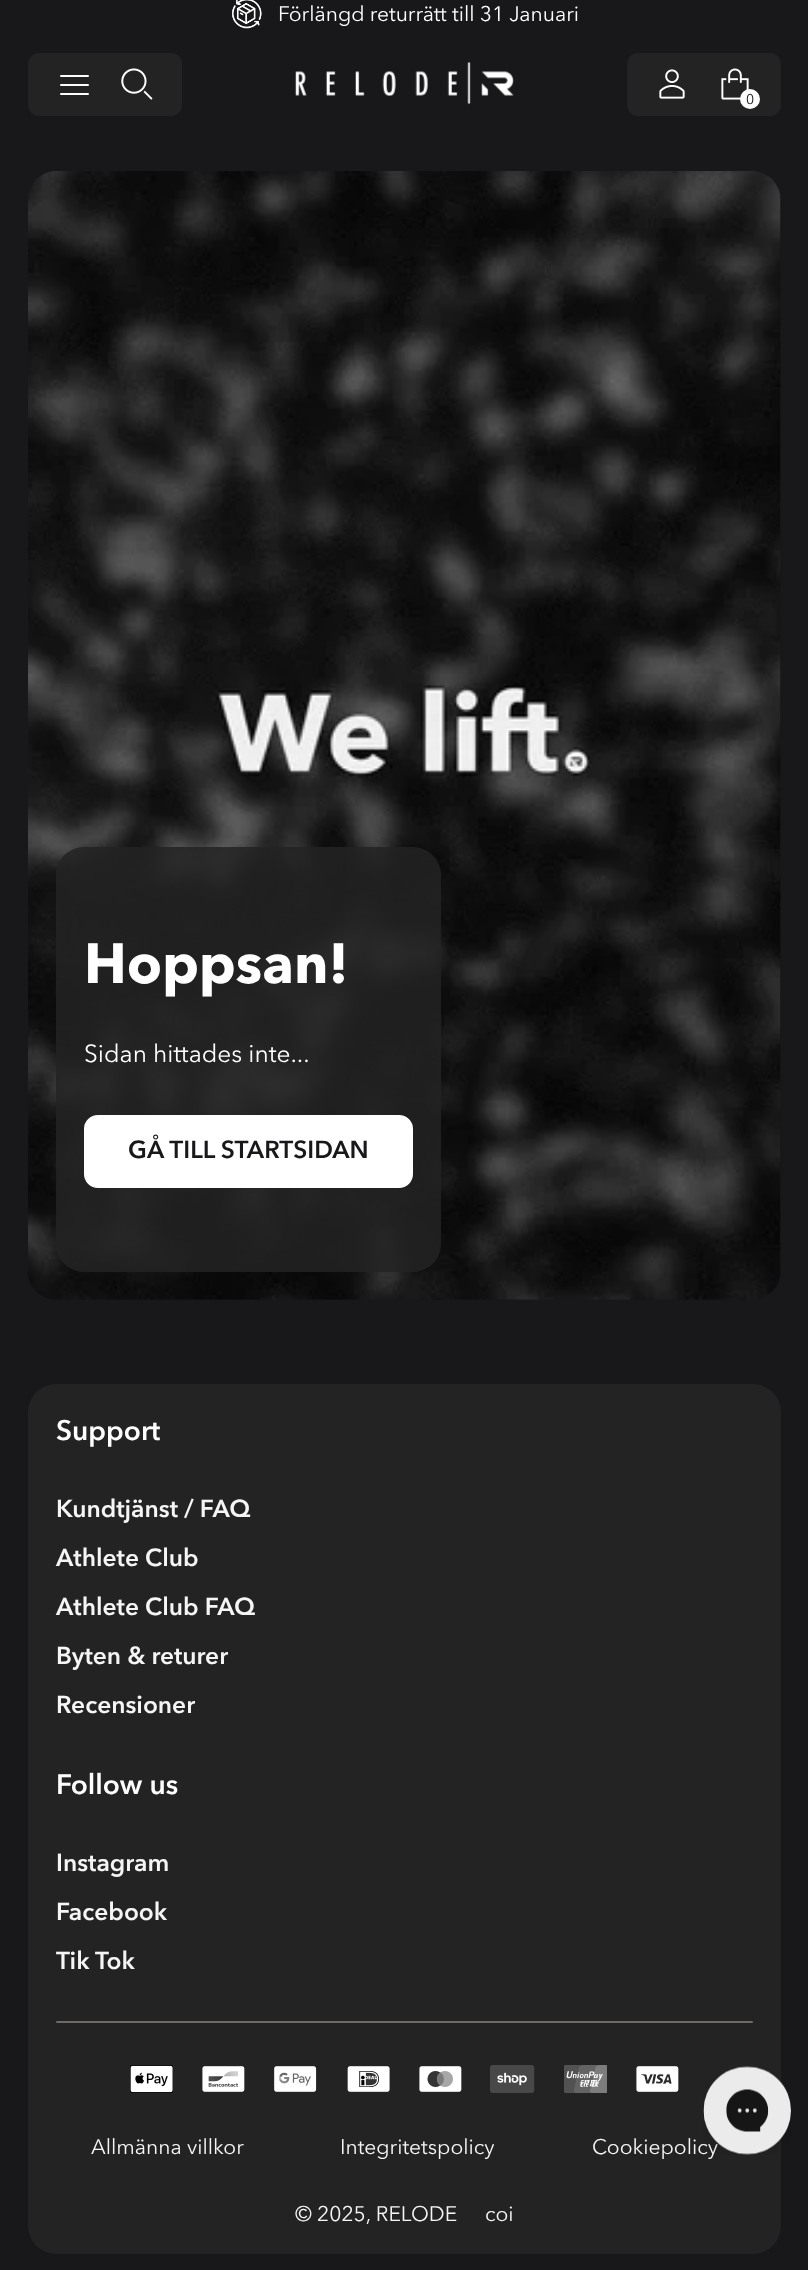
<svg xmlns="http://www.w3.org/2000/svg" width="808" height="2270">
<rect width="100%" height="100%" fill="#181719"/>
<image x="232" y="0" width="30" height="29" href="media/1.png"/>
<text x="278" y="21" style="font-family:Avenir Next;font-size:21px;fill:#fff">Förlängd returrätt till 31 Januari</text>
<rect x="28" y="53" width="154" height="63" rx="11" fill="#232323"/>
<rect x="60" y="75" width="29" height="2" rx="1" fill="#fff"/>
<rect x="60" y="84" width="29" height="2" rx="1" fill="#fff"/>
<rect x="60" y="93" width="29" height="2" rx="1" fill="#fff"/>
<image x="121" y="68" width="32" height="32" href="media/2.png"/>
<image x="295" y="62" width="219" height="43" href="media/3.png"/>
<rect x="627" y="53" width="154" height="63" rx="11" fill="#232323"/>
<image x="659" y="69" width="26" height="30" href="media/4.png"/>
<image x="721" y="68" width="28" height="32" href="media/5.png"/>
<circle cx="750" cy="99" r="10" fill="#fff"/>
<text x="746" y="104" style="font-family:Avenir Next;font-size:14px;fill:#181719">0</text>
<image x="28" y="171" width="753" height="1129" href="media/6.png"/>
<rect x="56" y="847" width="385" height="425" rx="28" fill="#232323d9"/>
<text x="84" y="983" style="font-family:Avenir Next;font-size:56px;font-weight:bold;fill:#fff">Hoppsan!</text>
<text x="84" y="1062" style="font-family:Avenir Next;font-size:24.5px;fill:#fff">Sidan hittades inte...</text>
<rect x="85" y="1116" width="327" height="71" rx="13" fill="#fff" stroke="#fff" stroke-width="2"/>
<text x="128" y="1158" style="font-family:Avenir Next;font-size:24.5px;font-weight:600;fill:#181719">GÅ TILL STARTSIDAN</text>
<rect x="28" y="1384" width="753" height="870" rx="28" fill="#232323"/>
<text x="56" y="1440" style="font-family:Avenir Next;font-size:28px;font-weight:600;fill:#fff">Support</text>
<text x="56" y="1517" style="font-family:Avenir Next;font-size:24.5px;font-weight:600;fill:#f5f5f5">Kundtjänst / FAQ</text>
<text x="56" y="1566" style="font-family:Avenir Next;font-size:24.5px;font-weight:600;fill:#f5f5f5">Athlete Club</text>
<text x="56" y="1615" style="font-family:Avenir Next;font-size:24.5px;font-weight:600;fill:#f5f5f5">Athlete Club FAQ</text>
<text x="56" y="1664" style="font-family:Avenir Next;font-size:24.5px;font-weight:600;fill:#f5f5f5">Byten &amp; returer</text>
<text x="56" y="1713" style="font-family:Avenir Next;font-size:24.5px;font-weight:600;fill:#f5f5f5">Recensioner</text>
<text x="56" y="1794" style="font-family:Avenir Next;font-size:28px;font-weight:600;fill:#fff">Follow us</text>
<text x="56" y="1871" style="font-family:Avenir Next;font-size:24.5px;font-weight:600;fill:#f5f5f5">Instagram</text>
<text x="56" y="1920" style="font-family:Avenir Next;font-size:24.5px;font-weight:600;fill:#f5f5f5">Facebook</text>
<text x="56" y="1969" style="font-family:Avenir Next;font-size:24.5px;font-weight:600;fill:#f5f5f5">Tik Tok</text>
<rect x="56" y="2021" width="697" height="2" rx="1" fill="#6d6b69"/>
<image x="130" y="2065" width="43" height="28" href="media/7.png"/>
<image x="202" y="2066" width="43" height="26" href="media/8.png"/>
<image x="274" y="2066" width="43" height="26" href="media/9.png"/>
<image x="347" y="2066" width="43" height="26" href="media/10.png"/>
<image x="419" y="2066" width="43" height="26" href="media/11.png"/>
<image x="490" y="2065" width="45" height="28" href="media/12.png"/>
<image x="564" y="2065" width="43" height="28" href="media/13.png"/>
<image x="636" y="2066" width="43" height="26" href="media/14.png"/>
<text x="91" y="2154" style="font-family:Avenir Next;font-size:21px;fill:#f5f5f5">Allmänna villkor</text>
<text x="340" y="2154" style="font-family:Avenir Next;font-size:21px;fill:#f5f5f5">Integritetspolicy</text>
<text x="592" y="2154" style="font-family:Avenir Next;font-size:21px;fill:#f5f5f5">Cookiepolicy</text>
<text x="295" y="2221" style="font-family:Avenir Next;font-size:21px;fill:#f5f5f5">© 2025, RELODE</text>
<text x="485" y="2221" style="font-family:Avenir Next;font-size:21px;fill:#f5f5f5">coi</text>
<image x="703" y="2066" width="88" height="89" href="media/15.png"/>
</svg>
